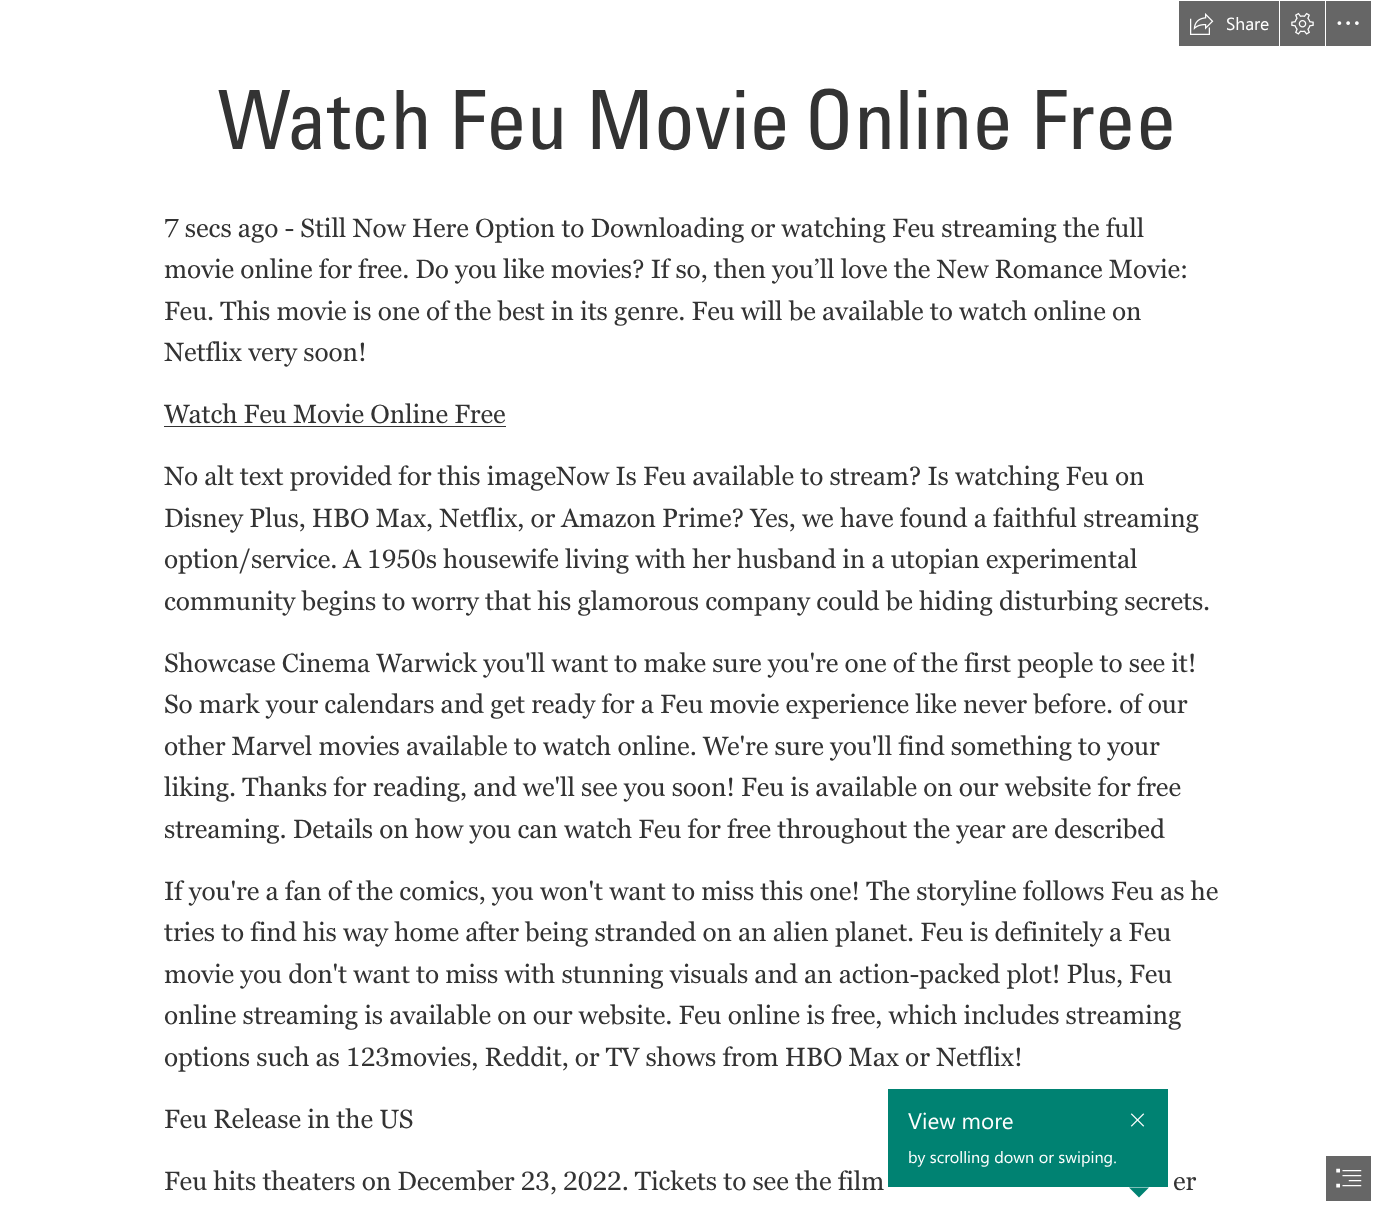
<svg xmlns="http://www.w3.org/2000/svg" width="1396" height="1227">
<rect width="100%" height="100%" fill="#fff"/>
<rect x="1179" y="1" width="100" height="45" fill="#666"/>
<image x="1190" y="13" width="24" height="22" href="media/1.png"/>
<text x="1226" y="30" style="font-family:Segoe UI;font-size:17.5px;fill:#fff">Share</text>
<rect x="1280" y="1" width="45" height="45" fill="#666"/>
<image x="1291" y="12" width="23" height="23" href="media/2.png"/>
<rect x="1326" y="1" width="45" height="45" fill="#666"/>
<image x="1337" y="21" width="22" height="4" href="media/3.png"/>
<text x="218" y="149" style="font-family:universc;font-size:81.75px;fill:#333">Watch Feu Movie Online Free</text>
<text x="164" y="237" style="font-family:Georgia;font-size:26.2px;letter-spacing:-0.1px;fill:#333">7 secs ago - Still Now Here Option to Downloading or watching Feu streaming the full</text>
<text x="164" y="278" style="font-family:Georgia;font-size:26.2px;letter-spacing:-0.1px;fill:#333">movie online for free. Do you like movies? If so, then you’ll love the New Romance Movie:</text>
<text x="164" y="320" style="font-family:Georgia;font-size:26.2px;letter-spacing:-0.1px;fill:#333">Feu. This movie is one of the best in its genre. Feu will be available to watch online on</text>
<text x="164" y="361" style="font-family:Georgia;font-size:26.2px;letter-spacing:-0.1px;fill:#333">Netflix very soon!</text>
<text x="164" y="423" style="font-family:Georgia;font-size:26.2px;letter-spacing:-0.1px;fill:#333">Watch Feu Movie Online Free</text>
<rect x="164" y="426" width="342" height="1" fill="#333"/>
<text x="164" y="485" style="font-family:Georgia;font-size:26.2px;letter-spacing:-0.1px;fill:#333">No alt text provided for this imageNow Is Feu available to stream? Is watching Feu on</text>
<text x="164" y="527" style="font-family:Georgia;font-size:26.2px;letter-spacing:-0.1px;fill:#333">Disney Plus, HBO Max, Netflix, or Amazon Prime? Yes, we have found a faithful streaming</text>
<text x="164" y="568" style="font-family:Georgia;font-size:26.2px;letter-spacing:-0.1px;fill:#333">option/service. A 1950s housewife living with her husband in a utopian experimental</text>
<text x="164" y="610" style="font-family:Georgia;font-size:26.2px;letter-spacing:-0.1px;fill:#333">community begins to worry that his glamorous company could be hiding disturbing secrets.</text>
<text x="164" y="672" style="font-family:Georgia;font-size:26.2px;letter-spacing:-0.1px;fill:#333">Showcase Cinema Warwick you'll want to make sure you're one of the first people to see it!</text>
<text x="164" y="713" style="font-family:Georgia;font-size:26.2px;letter-spacing:-0.1px;fill:#333">So mark your calendars and get ready for a Feu movie experience like never before. of our</text>
<text x="164" y="755" style="font-family:Georgia;font-size:26.2px;letter-spacing:-0.1px;fill:#333">other Marvel movies available to watch online. We're sure you'll find something to your</text>
<text x="164" y="796" style="font-family:Georgia;font-size:26.2px;letter-spacing:-0.1px;fill:#333">liking. Thanks for reading, and we'll see you soon! Feu is available on our website for free</text>
<text x="164" y="838" style="font-family:Georgia;font-size:26.2px;letter-spacing:-0.1px;fill:#333">streaming. Details on how you can watch Feu for free throughout the year are described</text>
<text x="164" y="900" style="font-family:Georgia;font-size:26.2px;letter-spacing:-0.1px;fill:#333">If you're a fan of the comics, you won't want to miss this one! The storyline follows Feu as he</text>
<text x="164" y="941" style="font-family:Georgia;font-size:26.2px;letter-spacing:-0.1px;fill:#333">tries to find his way home after being stranded on an alien planet. Feu is definitely a Feu</text>
<text x="164" y="983" style="font-family:Georgia;font-size:26.2px;letter-spacing:-0.1px;fill:#333">movie you don't want to miss with stunning visuals and an action-packed plot! Plus, Feu</text>
<text x="164" y="1024" style="font-family:Georgia;font-size:26.2px;letter-spacing:-0.1px;fill:#333">online streaming is available on our website. Feu online is free, which includes streaming</text>
<text x="164" y="1066" style="font-family:Georgia;font-size:26.2px;letter-spacing:-0.1px;fill:#333">options such as 123movies, Reddit, or TV shows from HBO Max or Netflix!</text>
<text x="164" y="1128" style="font-family:Georgia;font-size:26.2px;letter-spacing:-0.1px;fill:#333">Feu Release in the US</text>
<text x="164" y="1190" style="font-family:Georgia;font-size:26.2px;letter-spacing:-0.1px;fill:#333">Feu hits theaters on December 23, 2022. Tickets to see the film</text>
<text x="1173" y="1190" style="font-family:Georgia;font-size:26.2px;letter-spacing:-0.1px;fill:#333">er</text>
<rect x="888" y="1089" width="280" height="98" fill="#008272"/>
<text x="908" y="1129" style="font-family:Segoe UI;font-size:22.5px;fill:#fff">View more</text>
<text x="908" y="1163" style="font-family:Segoe UI;font-size:16.25px;fill:#fff">by scrolling down or swiping.</text>
<image x="1130" y="1113" width="15" height="14" href="media/4.png"/>
<path d="M1129 1187.5h20l-10 10z" fill="#008272"/>
<rect x="1326" y="1156" width="45" height="45" fill="#666"/>
<image x="1336" y="1168" width="26" height="20" href="media/5.png"/>
</svg>
